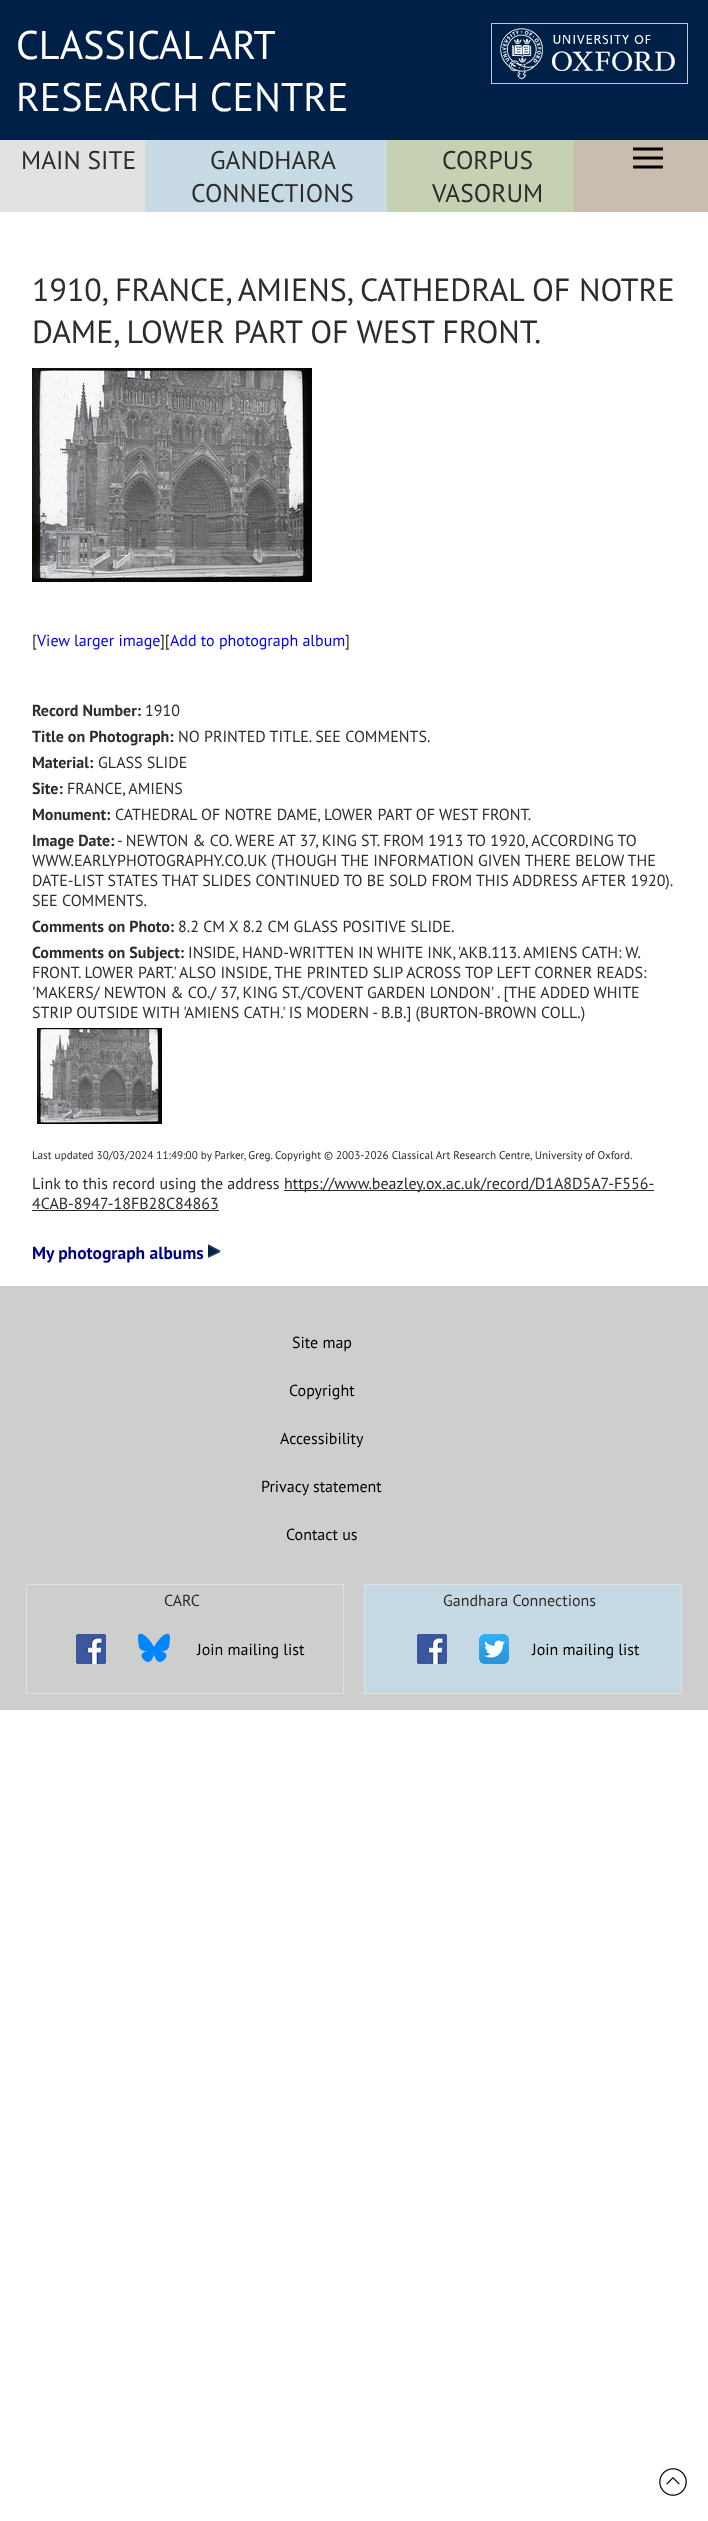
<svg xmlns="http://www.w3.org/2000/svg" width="708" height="2521">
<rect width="100%" height="100%" fill="#fff"/>
<rect width="708" height="140" fill="#002147"/>
<text x="16" y="59" word-spacing="-2" style="font-family:PT Sans;font-size:40px;fill:#fff">CLASSICAL ART</text>
<text x="16" y="111" style="font-family:PT Sans;font-size:40px;fill:#fff">RESEARCH CENTRE</text>
<image x="491" y="23" width="197" height="61" href="media/1.png"/>
<rect y="140" width="145" height="72" fill="#e2e2e2"/>
<text x="21" y="169" style="font-family:PT Sans;font-size:25.5px;fill:#2c2c2c">MAIN SITE</text>
<rect x="145" y="140" width="242" height="72" fill="#c8dbe5"/>
<text x="210" y="169" style="font-family:PT Sans;font-size:25.5px;fill:#2c2c2c">GANDHARA</text>
<text x="191" y="202" style="font-family:PT Sans;font-size:25.5px;fill:#2c2c2c">CONNECTIONS</text>
<rect x="387" y="140" width="187" height="72" fill="#c5d1b2"/>
<text x="442" y="169" style="font-family:PT Sans;font-size:25.5px;fill:#2c2c2c">CORPUS</text>
<text x="432" y="202" style="font-family:PT Sans;font-size:25.5px;fill:#2c2c2c">VASORUM</text>
<rect x="574" y="140" width="134" height="72" fill="#c8bdae"/>
<image x="633" y="147" width="30" height="22" href="media/2.png"/>
<text x="32" y="301" style="font-family:PT Sans;font-size:32px;fill:#2c2c2c">1910, FRANCE, AMIENS, CATHEDRAL OF NOTRE</text>
<text x="32" y="343" style="font-family:PT Sans;font-size:32px;fill:#2c2c2c">DAME, LOWER PART OF WEST FRONT.</text>
<image x="32" y="368" width="280" height="214" href="media/3.png"/>
<text x="32" y="646" style="font-family:PT Sans;font-size:16px;fill:#2c2c2c">[</text>
<text x="37" y="646" style="font-family:PT Sans;font-size:16px;fill:#00e">View larger image</text>
<text x="160" y="646" style="font-family:PT Sans;font-size:16px;fill:#2c2c2c">][</text>
<text x="170" y="646" style="font-family:PT Sans;font-size:16px;fill:#00e">Add to photograph album</text>
<text x="345" y="646" style="font-family:PT Sans;font-size:16px;fill:#2c2c2c">]</text>
<text x="32" y="716" style="font-family:PT Sans;font-size:16px;font-weight:bold;fill:#2c2c2c">Record Number:</text>
<text x="145" y="716" style="font-family:PT Sans;font-size:16px;fill:#2c2c2c">1910</text>
<text x="32" y="742" style="font-family:PT Sans;font-size:16px;font-weight:bold;fill:#2c2c2c">Title on Photograph:</text>
<text x="178" y="742" style="font-family:PT Sans;font-size:16px;fill:#2c2c2c">NO PRINTED TITLE. SEE COMMENTS.</text>
<text x="32" y="768" style="font-family:PT Sans;font-size:16px;font-weight:bold;fill:#2c2c2c">Material:</text>
<text x="98" y="768" style="font-family:PT Sans;font-size:16px;fill:#2c2c2c">GLASS SLIDE</text>
<text x="32" y="794" style="font-family:PT Sans;font-size:16px;font-weight:bold;fill:#2c2c2c">Site:</text>
<text x="67" y="794" style="font-family:PT Sans;font-size:16px;fill:#2c2c2c">FRANCE, AMIENS</text>
<text x="32" y="820" style="font-family:PT Sans;font-size:16px;font-weight:bold;fill:#2c2c2c">Monument:</text>
<text x="115" y="820" style="font-family:PT Sans;font-size:16px;fill:#2c2c2c">CATHEDRAL OF NOTRE DAME, LOWER PART OF WEST FRONT.</text>
<text x="32" y="846" style="font-family:PT Sans;font-size:16px;font-weight:bold;fill:#2c2c2c">Image Date:</text>
<text x="117" y="846" style="font-family:PT Sans;font-size:16px;fill:#2c2c2c">- NEWTON &amp; CO. WERE AT 37, KING ST. FROM 1913 TO 1920, ACCORDING TO</text>
<text x="32" y="866" style="font-family:PT Sans;font-size:16px;fill:#2c2c2c">WWW.EARLYPHOTOGRAPHY.CO.UK (THOUGH THE INFORMATION GIVEN THERE BELOW THE</text>
<text x="32" y="886" style="font-family:PT Sans;font-size:16px;fill:#2c2c2c">DATE-LIST STATES THAT SLIDES CONTINUED TO BE SOLD FROM THIS ADDRESS AFTER 1920).</text>
<text x="32" y="906" style="font-family:PT Sans;font-size:16px;fill:#2c2c2c">SEE COMMENTS.</text>
<text x="32" y="932" style="font-family:PT Sans;font-size:16px;font-weight:bold;fill:#2c2c2c">Comments on Photo:</text>
<text x="178" y="932" style="font-family:PT Sans;font-size:16px;fill:#2c2c2c">8.2 CM X 8.2 CM GLASS POSITIVE SLIDE.</text>
<text x="32" y="958" style="font-family:PT Sans;font-size:16px;font-weight:bold;fill:#2c2c2c">Comments on Subject:</text>
<text x="188" y="958" word-spacing="-0.25" style="font-family:PT Sans;font-size:16px;fill:#2c2c2c">INSIDE, HAND-WRITTEN IN WHITE INK, 'AKB.113. AMIENS CATH: W.</text>
<text x="32" y="978" style="font-family:PT Sans;font-size:16px;fill:#2c2c2c">FRONT. LOWER PART.' ALSO INSIDE, THE PRINTED SLIP ACROSS TOP LEFT CORNER READS:</text>
<text x="32" y="998" style="font-family:PT Sans;font-size:16px;fill:#2c2c2c">'MAKERS/ NEWTON &amp; CO./ 37, KING ST./COVENT GARDEN LONDON' . [THE ADDED WHITE</text>
<text x="32" y="1018" style="font-family:PT Sans;font-size:16px;fill:#2c2c2c">STRIP OUTSIDE WITH 'AMIENS CATH.' IS MODERN - B.B.] (BURTON-BROWN COLL.)</text>
<image x="37" y="1028" width="125" height="96" href="media/4.png"/>
<text x="32" y="1159" style="font-family:PT Sans;font-size:11.2px;fill:#2c2c2c">Last updated 30/03/2024 11:49:00 by Parker, Greg. Copyright © 2003-2026 Classical Art Research Centre, University of Oxford.</text>
<text x="32" y="1189" style="font-family:PT Sans;font-size:16px;fill:#2c2c2c">Link to this record using the address</text>
<rect x="284" y="1190" width="370" height="1" fill="#2c2c2c"/>
<text x="284" y="1189" style="font-family:PT Sans;font-size:16px;fill:#2c2c2c">https://www.beazley.ox.ac.uk/record/D1A8D5A7-F556-</text>
<text x="32" y="1209" style="font-family:PT Sans;font-size:16px;fill:#2c2c2c">4CAB-8947-18FB28C84863</text>
<rect x="32" y="1210" width="187" height="1" fill="#2c2c2c"/>
<text x="32" y="1259" style="font-family:PT Sans;font-size:17.5px;font-weight:bold;fill:#000080">My photograph albums</text>
<image x="208" y="1244" width="13" height="14" href="media/5.png"/>
<rect y="1286" width="708" height="424" fill="#cececc"/>
<text x="292" y="1348" style="font-family:PT Sans;font-size:16px;fill:#000">Site map</text>
<text x="289" y="1396" style="font-family:PT Sans;font-size:16px;fill:#000">Copyright</text>
<text x="280" y="1444" style="font-family:PT Sans;font-size:16px;fill:#000">Accessibility</text>
<text x="261" y="1492" style="font-family:PT Sans;font-size:16px;fill:#000">Privacy statement</text>
<text x="286" y="1540" style="font-family:PT Sans;font-size:16px;fill:#000">Contact us</text>
<rect x="26.5" y="1584.5" width="317" height="109" fill="none" stroke="#e0e0e0"/>
<text x="164" y="1606" style="font-family:PT Sans;font-size:16px;fill:#2c2c2c">CARC</text>
<image x="76" y="1634" width="30" height="30" href="media/6.png"/>
<image x="138" y="1633" width="32" height="29" href="media/7.png"/>
<text x="197" y="1655" style="font-family:PT Sans;font-size:16px;fill:#000">Join mailing list</text>
<rect x="364.5" y="1584.5" width="317" height="109" fill="#c5d9e4" stroke="#e0e0e0"/>
<text x="443" y="1606" style="font-family:PT Sans;font-size:16px;fill:#2c2c2c">Gandhara Connections</text>
<image x="417" y="1634" width="30" height="30" href="media/6.png"/>
<image x="479" y="1634" width="30" height="30" href="media/8.png"/>
<text x="532" y="1655" style="font-family:PT Sans;font-size:16px;fill:#000">Join mailing list</text>
<image x="659" y="2468" width="28" height="28" href="media/9.png"/>
</svg>
